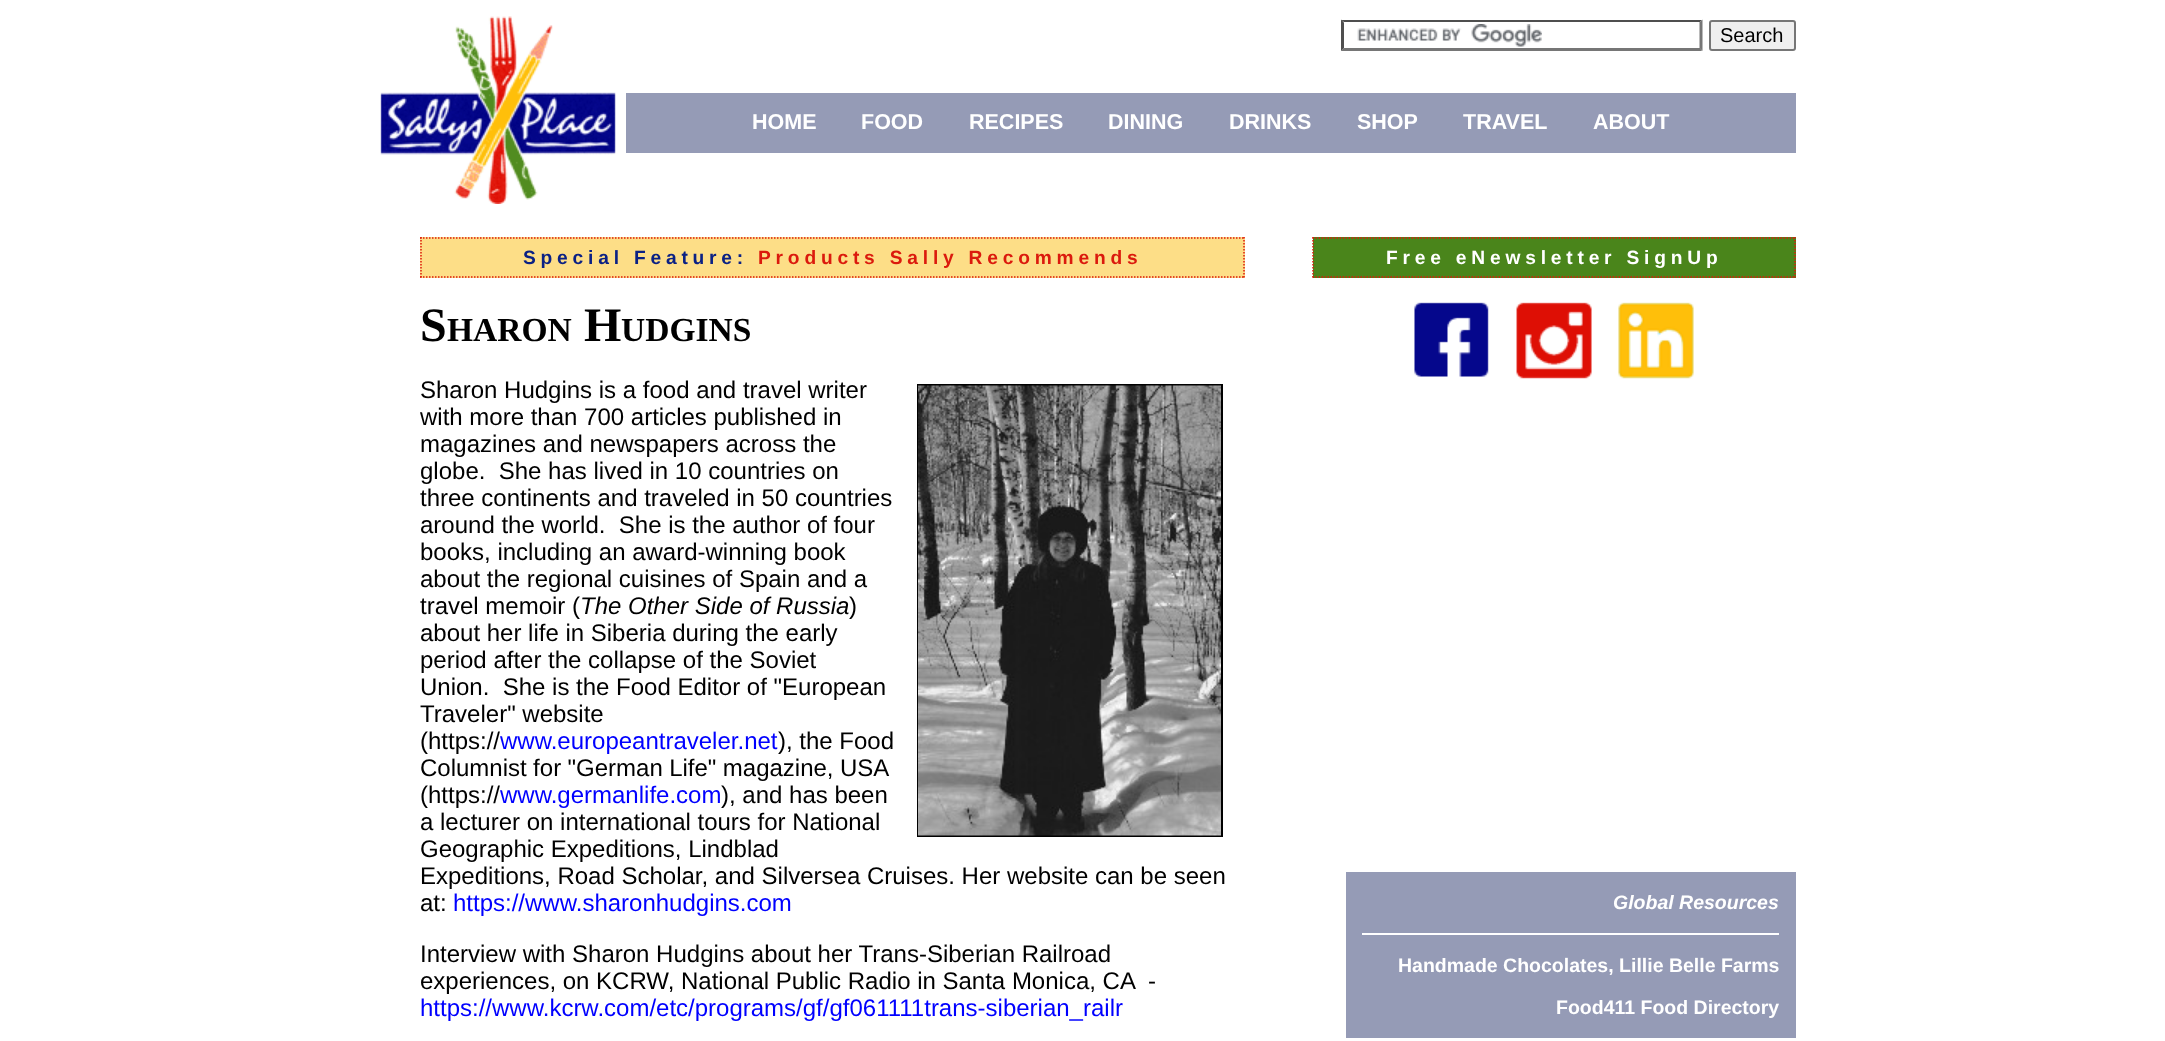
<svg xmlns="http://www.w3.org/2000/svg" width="2165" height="1041">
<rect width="100%" height="100%" fill="#fff"/>
<image x="380" y="16" width="236" height="188" href="media/1.png"/>
<image x="1357" y="24" width="185" height="23" href="media/2.png"/>
<path d="M1341 20h361l-2 2h-356z" fill="#4f4f4f"/>
<path d="M1702.5 19.5v31.5l-3-3v-25.5z" fill="#767676"/>
<path d="M1702 51h-361l3-3h356z" fill="#767676"/>
<path d="M1341 51v-31.5l3 3v25.5z" fill="#4f4f4f"/>
<rect x="1710" y="21" width="85" height="29" rx="2" fill="#efefef" stroke="#767676" stroke-width="2"/>
<text x="1720" y="42" style="font-family:Liberation Sans;font-size:20px;fill:#000">Search</text>
<rect x="626" y="93" width="1170" height="60" fill="#959bb6"/>
<text x="752" y="129" style="font-family:Liberation Sans;font-size:21.5px;font-weight:bold;fill:#fff">HOME</text>
<text x="861" y="129" style="font-family:Liberation Sans;font-size:21.5px;font-weight:bold;fill:#fff">FOOD</text>
<text x="969" y="129" style="font-family:Liberation Sans;font-size:21.5px;font-weight:bold;fill:#fff">RECIPES</text>
<text x="1108" y="129" style="font-family:Liberation Sans;font-size:21.5px;font-weight:bold;fill:#fff">DINING</text>
<text x="1229" y="129" style="font-family:Liberation Sans;font-size:21.5px;font-weight:bold;fill:#fff">DRINKS</text>
<text x="1357" y="129" style="font-family:Liberation Sans;font-size:21.5px;font-weight:bold;fill:#fff">SHOP</text>
<text x="1463" y="129" style="font-family:Liberation Sans;font-size:21.5px;font-weight:bold;fill:#fff">TRAVEL</text>
<text x="1593" y="129" style="font-family:Liberation Sans;font-size:21.5px;font-weight:bold;fill:#fff">ABOUT</text>
<rect x="420" y="237" width="825" height="41" fill="#fdde87"/>
<path d="M420 238h825" fill="none" stroke="#db1a0d" stroke-width="1.5" stroke-dasharray="1.5 1.5"/>
<path d="M1244 237v40.5" fill="none" stroke="#db1a0d" stroke-width="1.5" stroke-dasharray="1.5 1.5"/>
<path d="M420 277h825" fill="none" stroke="#db1a0d" stroke-width="1.5" stroke-dasharray="1.5 1.5"/>
<path d="M421 237v40.5" fill="none" stroke="#db1a0d" stroke-width="1.5" stroke-dasharray="1.5 1.5"/>
<text x="523" y="264" style="font-family:Liberation Sans;font-size:19.2px;font-weight:bold;letter-spacing:4.8px;fill:#0b2184">Special Feature:</text>
<text x="758" y="264" style="font-family:Liberation Sans;font-size:19.2px;font-weight:bold;letter-spacing:4.8px;fill:#db1a0d">Products Sally Recommends</text>
<text x="420" y="341" style="font-family:Liberation Serif;font-size:48px;font-weight:bold;fill:#000">S</text>
<text x="447" y="341" style="font-family:Liberation Serif;font-size:33.5px;font-weight:bold;fill:#000">HARON</text>
<text x="584" y="341" style="font-family:Liberation Serif;font-size:48px;font-weight:bold;fill:#000">H</text>
<text x="621" y="341" style="font-family:Liberation Serif;font-size:33.5px;font-weight:bold;fill:#000">UDGINS</text>
<text x="420" y="398" style="font-family:Liberation Sans;font-size:24px;fill:#000">Sharon Hudgins is a food and travel writer</text>
<rect x="918" y="385" width="304" height="451" fill="none" stroke="#000" stroke-width="2"/>
<image x="918" y="385" width="303" height="451" href="media/3.png"/>
<text x="420" y="425" style="font-family:Liberation Sans;font-size:24px;fill:#000">with more than 700 articles published in</text>
<text x="420" y="452" style="font-family:Liberation Sans;font-size:24px;fill:#000">magazines and newspapers across the</text>
<text x="420" y="479" style="font-family:Liberation Sans;font-size:24px;fill:#000" xml:space="preserve">globe.  She has lived in 10 countries on</text>
<text x="420" y="506" style="font-family:Liberation Sans;font-size:24px;fill:#000">three continents and traveled in 50 countries</text>
<text x="420" y="533" style="font-family:Liberation Sans;font-size:24px;fill:#000" xml:space="preserve">around the world.  She is the author of four</text>
<text x="420" y="560" style="font-family:Liberation Sans;font-size:24px;fill:#000">books, including an award-winning book</text>
<text x="420" y="587" style="font-family:Liberation Sans;font-size:24px;fill:#000">about the regional cuisines of Spain and a</text>
<text x="420" y="614" style="font-family:Liberation Sans;font-size:24px;fill:#000">travel memoir (</text>
<text x="580" y="614" style="font-family:Liberation Sans;font-size:24px;font-style:italic;fill:#000">The Other Side of Russia</text>
<text x="849" y="614" style="font-family:Liberation Sans;font-size:24px;fill:#000">)</text>
<text x="420" y="641" style="font-family:Liberation Sans;font-size:24px;fill:#000">about her life in Siberia during the early</text>
<text x="420" y="668" style="font-family:Liberation Sans;font-size:24px;fill:#000">period after the collapse of the Soviet</text>
<text x="420" y="695" style="font-family:Liberation Sans;font-size:24px;fill:#000" xml:space="preserve">Union.  She is the Food Editor of "European</text>
<text x="420" y="722" style="font-family:Liberation Sans;font-size:24px;fill:#000">Traveler" website</text>
<text x="420" y="749" style="font-family:Liberation Sans;font-size:24px;fill:#000">(https://</text>
<text x="500" y="749" style="font-family:Liberation Sans;font-size:24px;fill:#00f">www.europeantraveler.net</text>
<text x="778" y="749" style="font-family:Liberation Sans;font-size:24px;fill:#000">), the Food</text>
<text x="420" y="776" word-spacing="-0.25" style="font-family:Liberation Sans;font-size:24px;fill:#000">Columnist for "German Life" magazine, USA</text>
<text x="420" y="803" style="font-family:Liberation Sans;font-size:24px;fill:#000">(https://</text>
<text x="500" y="803" style="font-family:Liberation Sans;font-size:24px;fill:#00f">www.germanlife.com</text>
<text x="721" y="803" style="font-family:Liberation Sans;font-size:24px;fill:#000">), and has been</text>
<text x="420" y="830" style="font-family:Liberation Sans;font-size:24px;fill:#000">a lecturer on international tours for National</text>
<text x="420" y="857" style="font-family:Liberation Sans;font-size:24px;fill:#000">Geographic Expeditions, Lindblad</text>
<text x="420" y="884" style="font-family:Liberation Sans;font-size:24px;fill:#000">Expeditions, Road Scholar, and Silversea Cruises. Her website can be seen</text>
<text x="420" y="911" style="font-family:Liberation Sans;font-size:24px;fill:#000">at:</text>
<text x="453" y="911" style="font-family:Liberation Sans;font-size:24px;fill:#00f">https://www.sharonhudgins.com</text>
<text x="420" y="962" style="font-family:Liberation Sans;font-size:24px;fill:#000">Interview with Sharon Hudgins about her Trans-Siberian Railroad</text>
<text x="420" y="989" style="font-family:Liberation Sans;font-size:24px;fill:#000" xml:space="preserve">experiences, on KCRW, National Public Radio in Santa Monica, CA  -</text>
<text x="420" y="1016" style="font-family:Liberation Sans;font-size:24px;fill:#00f">https://www.kcrw.com/etc/programs/gf/gf061111trans-siberian_railr</text>
<rect x="1313" y="237" width="483" height="41" fill="#4a851b"/>
<path d="M1312.5 238h483" fill="none" stroke="#db1a0d" stroke-width="1.5" stroke-dasharray="1.5 1.5"/>
<path d="M1795 237v40.5" fill="none" stroke="#db1a0d" stroke-width="1.5" stroke-dasharray="1.5 1.5"/>
<path d="M1312.5 277h483" fill="none" stroke="#db1a0d" stroke-width="1.5" stroke-dasharray="1.5 1.5"/>
<path d="M1313 237v40.5" fill="none" stroke="#db1a0d" stroke-width="1.5" stroke-dasharray="1.5 1.5"/>
<text x="1386" y="264" style="font-family:Liberation Sans;font-size:19.2px;font-weight:bold;letter-spacing:4.8px;fill:#fff">Free eNewsletter SignUp</text>
<image x="1414" y="302" width="75" height="75" href="media/4.png"/>
<image x="1516" y="302" width="76" height="77" href="media/5.png"/>
<image x="1618" y="302" width="76" height="77" href="media/6.png"/>
<rect x="1346" y="872" width="450" height="166" fill="#959bb6"/>
<rect x="1362" y="933" width="417" height="2" fill="#fff"/>
<text x="1613" y="909" style="font-family:Liberation Sans;font-size:19.5px;font-weight:bold;font-style:italic;fill:#fff">Global Resources</text>
<text x="1398" y="972" style="font-family:Liberation Sans;font-size:19.5px;font-weight:bold;fill:#fff">Handmade Chocolates, Lillie Belle Farms</text>
<text x="1556" y="1014" style="font-family:Liberation Sans;font-size:19.5px;font-weight:bold;fill:#fff">Food411 Food Directory</text>
</svg>
